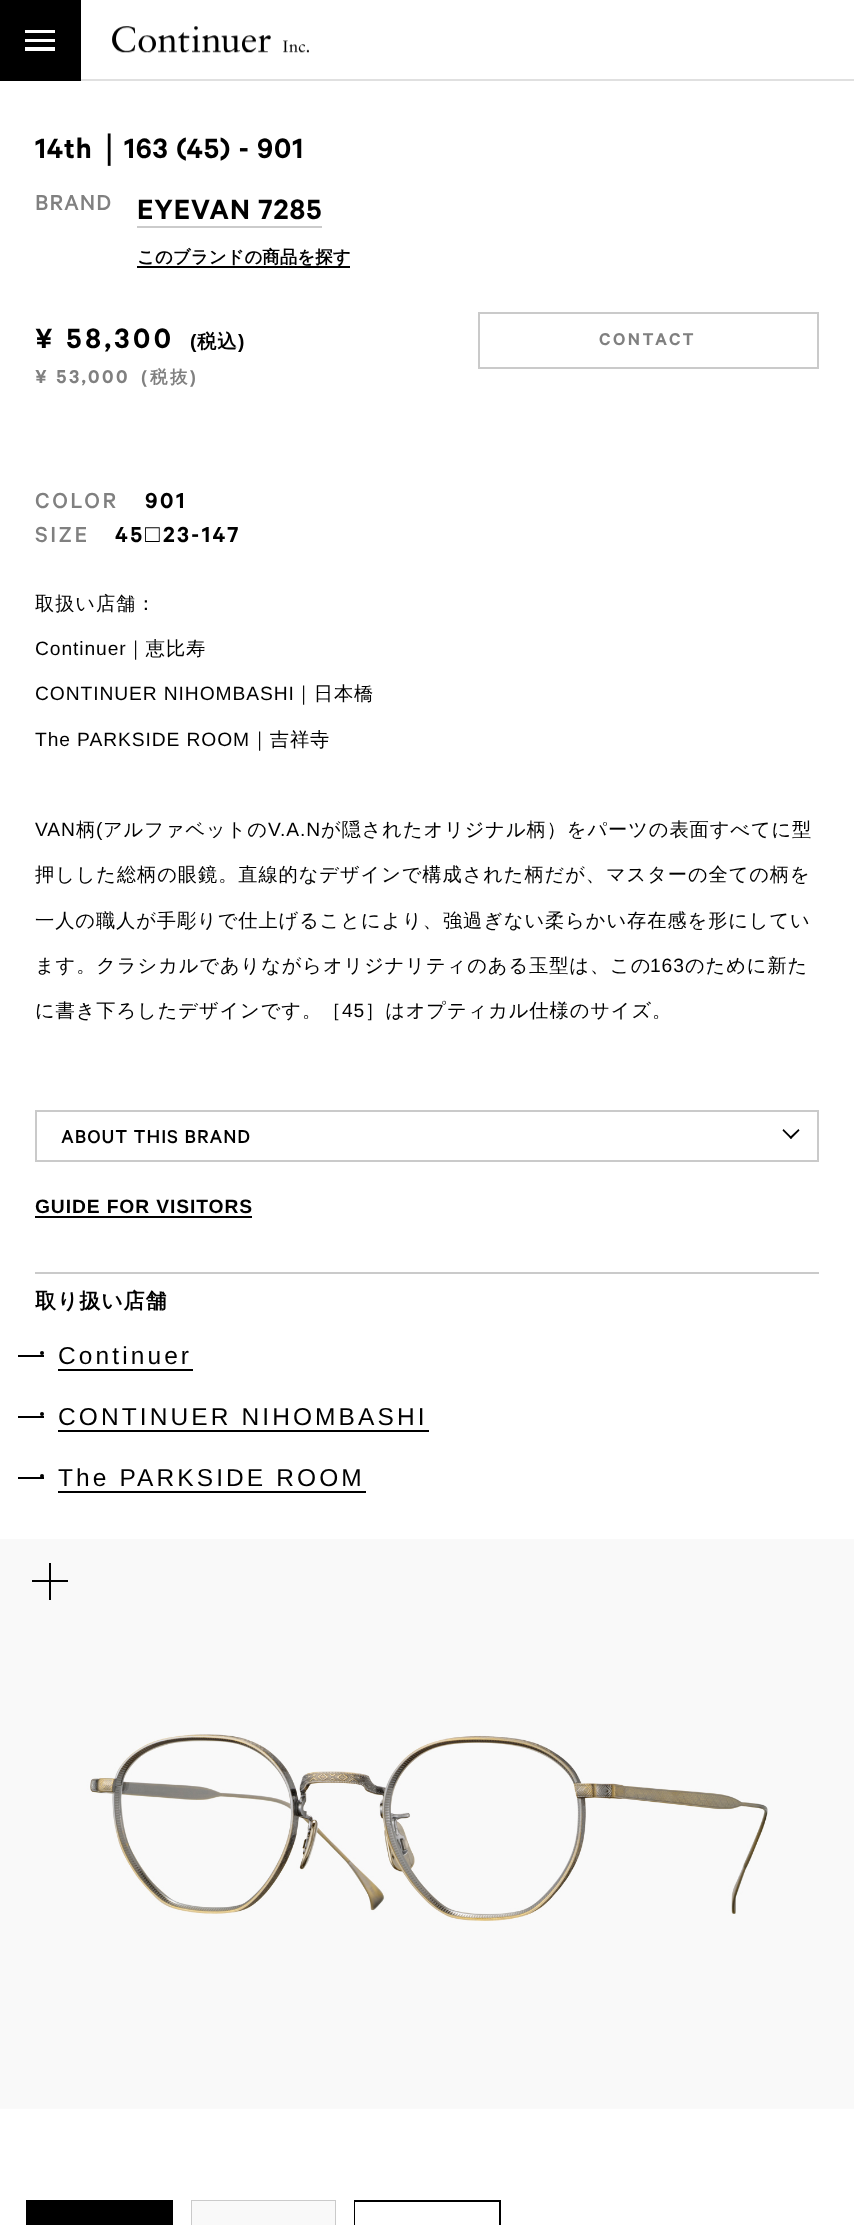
<svg xmlns="http://www.w3.org/2000/svg" width="854" height="2225">
<rect width="100%" height="100%" fill="#fff"/>
<rect x="81" y="79" width="773" height="2" fill="#e0e0e0"/>
<rect width="81" height="81" fill="#000"/>
<rect x="25" y="30" width="30" height="3" fill="#fff"/>
<rect x="25" y="39" width="30" height="3" fill="#fff"/>
<rect x="25" y="47" width="30" height="4" fill="#fff"/>
<image x="112" y="26" width="197" height="27" href="media/1.png"/>
<text x="35" y="158" style="font-family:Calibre;font-size:31.5px;font-weight:600;letter-spacing:0.9px;fill:#000">14th</text>
<text x="93" y="158" style="font-family:WenQuanYi Zen Hei;font-size:31.5px;font-weight:bold;letter-spacing:0.9px;fill:#000">｜</text>
<text x="124" y="158" style="font-family:Calibre;font-size:31.5px;font-weight:600;letter-spacing:0.9px;fill:#000">163 (45) - 901</text>
<text x="35" y="210" style="font-family:Calibre;font-size:24.5px;font-weight:500;letter-spacing:0.9px;fill:#808080">BRAND</text>
<text x="137" y="219" style="font-family:Calibre;font-size:31.5px;font-weight:600;letter-spacing:0.9px;fill:#000">EYEVAN 7285</text>
<rect x="137" y="226" width="185" height="2" fill="#cbcbcb"/>
<rect x="137" y="266" width="213" height="2" fill="#000"/>
<text x="137" y="263" style="font-family:WenQuanYi Zen Hei;font-size:17.5px;font-weight:bold;fill:#000">このブランドの商品を探す</text>
<text x="35" y="348" style="font-family:Calibre;font-size:31.5px;font-weight:600;letter-spacing:3.5px;fill:#000">¥ 58,300</text>
<text x="190" y="348" style="font-family:Liberation Sans;font-size:19.25px;font-weight:bold;letter-spacing:0.9px;fill:#000">(</text>
<text x="197" y="348" style="font-family:WenQuanYi Zen Hei;font-size:19.25px;font-weight:bold;letter-spacing:0.9px;fill:#000">税込</text>
<text x="238" y="348" style="font-family:Liberation Sans;font-size:19.25px;font-weight:bold;letter-spacing:0.9px;fill:#000">)</text>
<rect x="479" y="313" width="339" height="55" fill="none" stroke="#cacaca" stroke-width="2"/>
<text x="599" y="345" style="font-family:Calibre;font-size:19.25px;font-weight:600;letter-spacing:2.5px;fill:#808080">CONTACT</text>
<text x="35" y="383" style="font-family:Calibre;font-size:21px;font-weight:600;letter-spacing:2.5px;fill:#808080">¥ 53,000</text>
<text x="141" y="383" style="font-family:Liberation Sans;font-size:17.5px;font-weight:bold;letter-spacing:2.5px;fill:#808080">(</text>
<text x="150" y="383" style="font-family:WenQuanYi Zen Hei;font-size:17.5px;font-weight:bold;letter-spacing:2.5px;fill:#808080">税抜</text>
<text x="190" y="383" style="font-family:Liberation Sans;font-size:17.5px;font-weight:bold;letter-spacing:2.5px;fill:#808080">)</text>
<text x="35" y="508" style="font-family:Calibre;font-size:24.5px;font-weight:500;letter-spacing:2.5px;fill:#808080">COLOR</text>
<text x="145" y="508" style="font-family:Calibre;font-size:24.5px;font-weight:600;letter-spacing:2.5px;fill:#000">901</text>
<text x="35" y="542" style="font-family:Calibre;font-size:24.5px;font-weight:500;letter-spacing:2.5px;fill:#808080">SIZE</text>
<text x="115" y="542" style="font-family:Calibre;font-size:24.5px;font-weight:600;letter-spacing:2.5px;fill:#000">45</text>
<text x="145" y="542" style="font-family:Liberation Sans;font-size:24.5px;letter-spacing:2.5px;fill:#000">□</text>
<text x="163" y="542" style="font-family:Calibre;font-size:24.5px;font-weight:600;letter-spacing:2.5px;fill:#000">23-147</text>
<text x="35" y="610" style="font-family:WenQuanYi Zen Hei;font-size:19.25px;font-weight:500;letter-spacing:0.9px;fill:#000">取扱い店舗：</text>
<text x="35" y="655" style="font-family:Liberation Sans;font-size:19.25px;letter-spacing:0.9px;fill:#000">Continuer</text>
<text x="126" y="655" style="font-family:WenQuanYi Zen Hei;font-size:19.25px;font-weight:500;letter-spacing:0.9px;fill:#000">｜恵比寿</text>
<text x="35" y="700" style="font-family:Liberation Sans;font-size:19.25px;letter-spacing:0.9px;fill:#000">CONTINUER NIHOMBASHI</text>
<text x="294" y="700" style="font-family:WenQuanYi Zen Hei;font-size:19.25px;font-weight:500;letter-spacing:0.9px;fill:#000">｜日本橋</text>
<text x="35" y="746" style="font-family:Liberation Sans;font-size:19.25px;letter-spacing:0.9px;fill:#000">The PARKSIDE ROOM</text>
<text x="250" y="746" style="font-family:WenQuanYi Zen Hei;font-size:19.25px;font-weight:500;letter-spacing:0.9px;fill:#000">｜吉祥寺</text>
<text x="35" y="836" style="font-family:Liberation Sans;font-size:19.25px;letter-spacing:0.9px;fill:#000">VAN</text>
<text x="76" y="836" style="font-family:WenQuanYi Zen Hei;font-size:19.25px;font-weight:500;letter-spacing:0.9px;fill:#000">柄</text>
<text x="96" y="836" style="font-family:Liberation Sans;font-size:19.25px;letter-spacing:0.9px;fill:#000">(</text>
<text x="103" y="836" style="font-family:WenQuanYi Zen Hei;font-size:19.25px;font-weight:500;letter-spacing:0.9px;fill:#000">アルファベットの</text>
<text x="268" y="836" style="font-family:Liberation Sans;font-size:19.25px;letter-spacing:0.9px;fill:#000">V.A.N</text>
<text x="321" y="836" style="font-family:WenQuanYi Zen Hei;font-size:19.25px;font-weight:500;letter-spacing:0.9px;fill:#000">が隠されたオリジナル柄）をパーツの表面すべてに型</text>
<text x="35" y="881" style="font-family:WenQuanYi Zen Hei;font-size:19.25px;font-weight:500;letter-spacing:0.9px;fill:#000">押しした総柄の眼鏡。直線的なデザインで構成された柄だが、マスターの全ての柄を</text>
<text x="35" y="927" style="font-family:WenQuanYi Zen Hei;font-size:19.25px;font-weight:500;letter-spacing:0.9px;fill:#000">一人の職人が手彫りで仕上げることにより、強過ぎない柔らかい存在感を形にしてい</text>
<text x="35" y="972" style="font-family:WenQuanYi Zen Hei;font-size:19.25px;font-weight:500;letter-spacing:0.9px;fill:#000">ます。クラシカルでありながらオリジナリティのある玉型は、この</text>
<text x="650" y="972" style="font-family:Liberation Sans;font-size:19.25px;letter-spacing:0.9px;fill:#000">163</text>
<text x="685" y="972" style="font-family:WenQuanYi Zen Hei;font-size:19.25px;font-weight:500;letter-spacing:0.9px;fill:#000">のために新た</text>
<text x="35" y="1017" style="font-family:WenQuanYi Zen Hei;font-size:19.25px;font-weight:500;letter-spacing:0.9px;fill:#000">に書き下ろしたデザインです。［</text>
<text x="342" y="1017" style="font-family:Liberation Sans;font-size:19.25px;letter-spacing:0.9px;fill:#000">45</text>
<text x="365" y="1017" style="font-family:WenQuanYi Zen Hei;font-size:19.25px;font-weight:500;letter-spacing:0.9px;fill:#000">］はオプティカル仕様のサイズ。</text>
<rect x="36" y="1111" width="782" height="50" fill="none" stroke="#cacaca" stroke-width="2"/>
<text x="61" y="1143" style="font-family:Calibre;font-size:21px;font-weight:500;letter-spacing:0.9px;fill:#000">ABOUT THIS BRAND</text>
<path d="M799.5 1130.5l-8.5 8.5l-1.5-1.5l9-8.5z" fill="#000"/>
<path d="M792 1137.5l-1 1.5l-8.5-8.5l1-1.5z" fill="#000"/>
<text x="35" y="1213" style="font-family:Liberation Sans;font-size:19.25px;font-weight:bold;letter-spacing:0.9px;fill:#000">GUIDE FOR VISITORS</text>
<rect x="35" y="1216" width="217" height="2" fill="#000"/>
<rect x="35" y="1272" width="784" height="2" fill="#cacaca"/>
<text x="35" y="1308" style="font-family:WenQuanYi Zen Hei;font-size:21px;font-weight:bold;letter-spacing:0.9px;fill:#000">取り扱い店舗</text>
<rect x="18" y="1355" width="26" height="2" fill="#000"/>
<rect x="58" y="1369" width="135" height="2" fill="#000"/>
<circle cx="42" cy="1353" r="2" fill="#000"/>
<text x="58" y="1364" style="font-family:Liberation Sans;font-size:24.5px;letter-spacing:3.1px;fill:#000">Continuer</text>
<rect x="18" y="1416" width="26" height="2" fill="#000"/>
<rect x="58" y="1430" width="371" height="2" fill="#000"/>
<circle cx="42" cy="1414" r="2" fill="#000"/>
<text x="58" y="1425" style="font-family:Liberation Sans;font-size:24.5px;letter-spacing:3.1px;fill:#000">CONTINUER NIHOMBASHI</text>
<rect x="18" y="1477" width="26" height="2" fill="#000"/>
<rect x="58" y="1491" width="308" height="2" fill="#000"/>
<circle cx="42" cy="1476" r="2" fill="#000"/>
<text x="58" y="1486" style="font-family:Liberation Sans;font-size:24.5px;letter-spacing:3.1px;fill:#000">The PARKSIDE ROOM</text>
<image x="0" y="1539" width="854" height="570" href="media/2.png"/>
<rect x="32" y="1580" width="36" height="2" fill="#000"/>
<rect x="49" y="1563" width="2" height="37" fill="#000"/>
<rect x="27" y="2201" width="145" height="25" fill="none" stroke="#000" stroke-width="2"/>
<rect x="28" y="2202" width="143" height="23" fill="#000"/>
<rect x="192" y="2201" width="143" height="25" fill="none" stroke="#cacaca" stroke-width="2"/>
<rect x="192" y="2201" width="143" height="24" fill="#f9f9f9"/>
<rect x="355" y="2201" width="145" height="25" fill="none" stroke="#000" stroke-width="2"/>
<rect x="355" y="2202" width="1" height="23" fill="#fff"/>
</svg>
